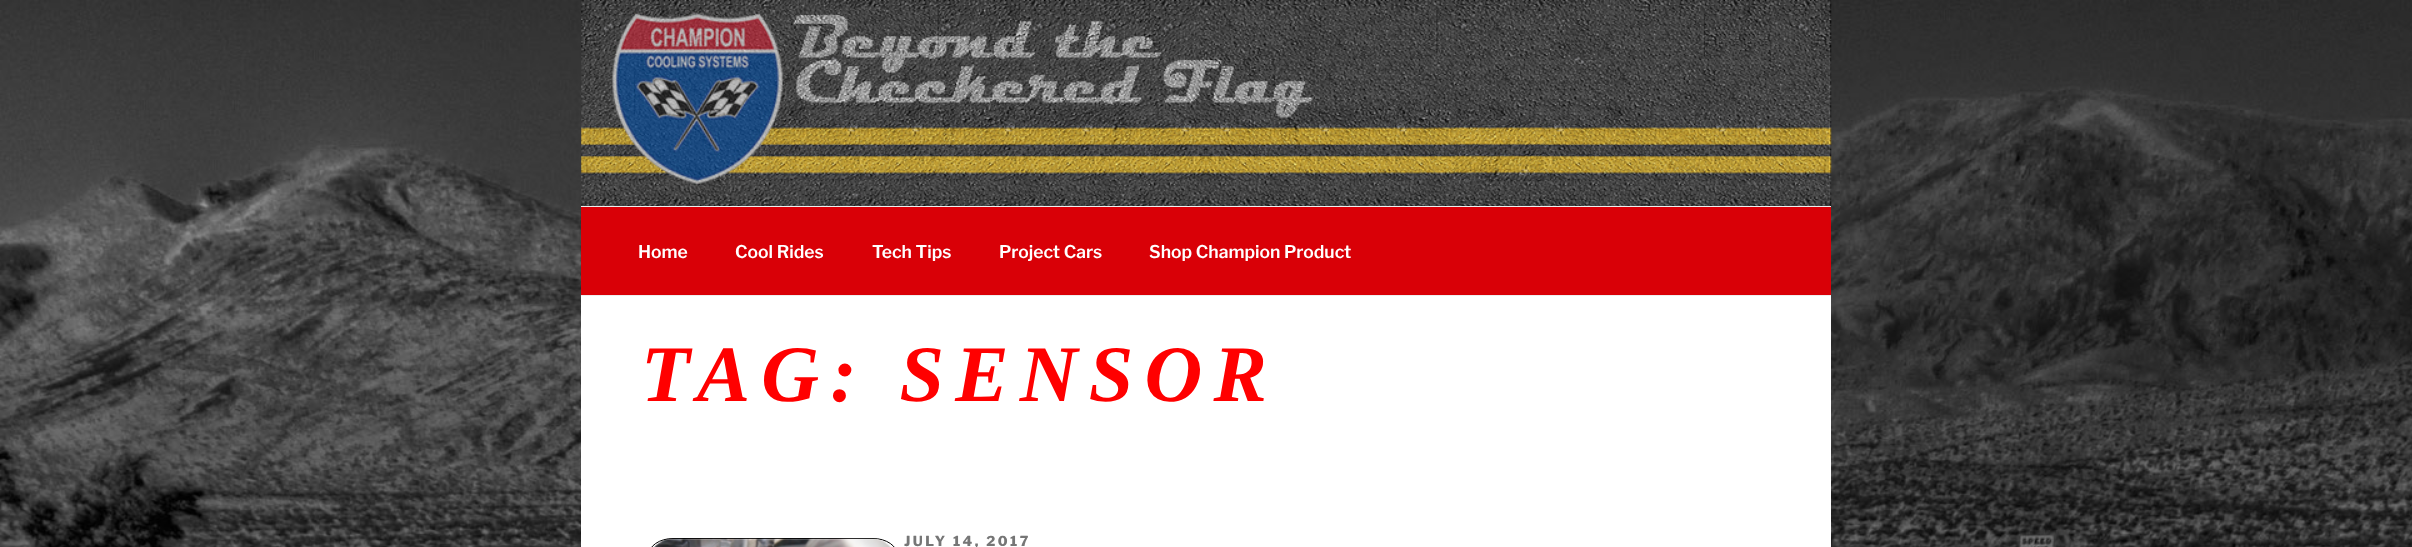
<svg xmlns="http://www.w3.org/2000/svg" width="2412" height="547">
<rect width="100%" height="100%" fill="#fff"/>
<image x="0" y="0" width="2412" height="547" href="media/1.png"/>
<image x="581" y="0" width="1251" height="207" href="media/2.png"/>
<rect x="581" y="207" width="1250" height="88" fill="#d90007"/>
<rect x="581" y="206" width="1250" height="1" fill="#eee"/>
<rect x="581" y="295" width="1250" height="1" fill="#eee"/>
<text x="638" y="258" style="font-family:Libre Franklin;font-size:17.5px;font-weight:600;fill:#fff">Home</text>
<text x="735" y="258" style="font-family:Libre Franklin;font-size:17.5px;font-weight:600;fill:#fff">Cool Rides</text>
<text x="872" y="258" style="font-family:Libre Franklin;font-size:17.5px;font-weight:600;fill:#fff">Tech Tips</text>
<text x="999" y="258" style="font-family:Libre Franklin;font-size:17.5px;font-weight:600;fill:#fff">Project Cars</text>
<text x="1149" y="258" style="font-family:Libre Franklin;font-size:17.5px;font-weight:600;fill:#fff">Shop Champion Product</text>
<rect x="581" y="296" width="1250" height="251" fill="#fff"/>
<text x="641" y="401" style="font-family:Liberation Serif;font-size:80px;font-weight:bold;font-style:italic;letter-spacing:11.25px;fill:#f00">TAG: SENSOR</text>
<rect x="648.5" y="538.5" width="249" height="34" rx="24.5" fill="none" stroke="#000"/>
<image x="654" y="538" width="237" height="9" href="media/3.png"/>
<text x="904" y="546" style="font-family:Libre Franklin;font-size:13.75px;font-weight:800;letter-spacing:2.5px;fill:#767676">JULY 14, 2017</text>
</svg>
